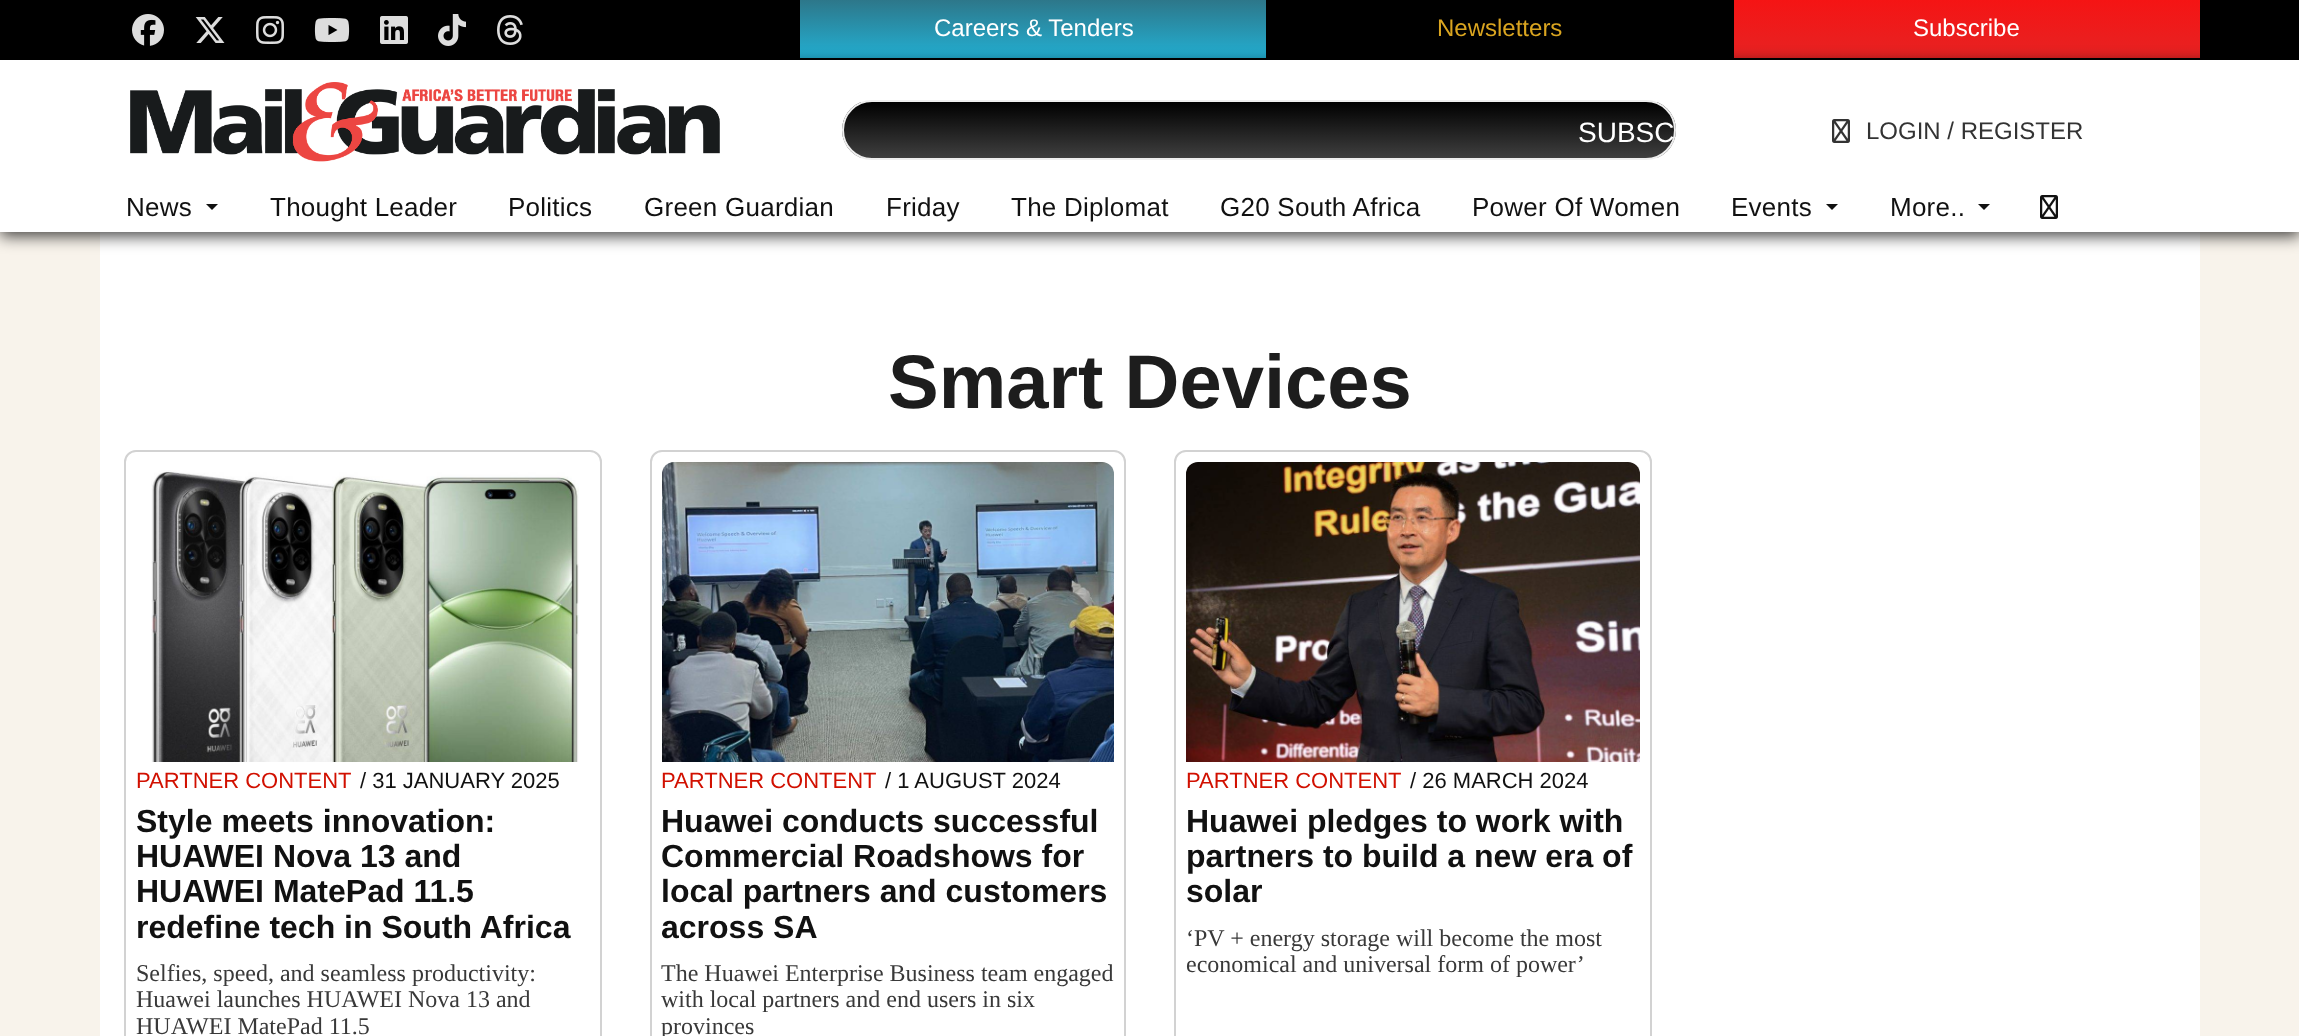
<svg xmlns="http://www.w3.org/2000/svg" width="2299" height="1036">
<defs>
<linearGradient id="g1" gradientUnits="userSpaceOnUse" x1="1033" y1="58" x2="1033" y2="0"><stop offset="0" stop-color="#23afd2"/><stop offset="1" stop-color="#2d778a"/></linearGradient>
<linearGradient id="g2" gradientUnits="userSpaceOnUse" x1="1967" y1="0" x2="1967" y2="58"><stop offset="0" stop-color="#f51414"/><stop offset="1" stop-color="#e62323"/></linearGradient>
<clipPath id="clip1"><rect x="842" y="100" width="834" height="60" rx="30"/></clipPath>
<linearGradient id="g3" gradientUnits="userSpaceOnUse" x1="1259" y1="102" x2="1259" y2="158"><stop offset="0" stop-color="#000"/><stop offset="1" stop-color="#3f3f3f"/></linearGradient>
</defs>
<rect width="100%" height="100%" fill="#f8f3eb"/>
<rect width="2299" height="60" fill="#000"/>
<image x="132" y="14" width="32" height="32" href="media/1.png"/>
<image x="195" y="17" width="30" height="26" href="media/2.png"/>
<image x="256" y="16" width="28" height="28" href="media/3.png"/>
<image x="314" y="18" width="36" height="24" href="media/4.png"/>
<image x="380" y="16" width="28" height="28" href="media/5.png"/>
<image x="438" y="14" width="28" height="32" href="media/6.png"/>
<image x="497" y="15" width="26" height="30" href="media/7.png"/>
<rect x="800" width="466" height="58" fill="url(#g1)"/>
<text x="934" y="36" style="font-family:Liberation Sans;font-size:24px;fill:#fff">Careers &amp; Tenders</text>
<text x="1437" y="36" style="font-family:Liberation Sans;font-size:24px;fill:#daa520">Newsletters</text>
<rect x="1734" width="466" height="58" fill="url(#g2)"/>
<text x="1913" y="36" style="font-family:Liberation Sans;font-size:24px;fill:#fff">Subscribe</text>
<rect x="100" y="232" width="2100" height="804" fill="#fff"/>
<rect y="64" width="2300" height="172" fill="#000000bf" filter="blur(8px)"/>
<rect y="60" width="2299" height="172" fill="#fff"/>
<image x="130" y="82" width="590" height="80" href="media/8.png"/>
<g clip-path="url(#clip1)">
<rect x="842" y="102" width="834" height="56" fill="url(#g3)"/>
</g>
<rect x="843" y="101" width="832" height="58" rx="29" fill="none" stroke="#eee" stroke-width="2"/>
<text x="1578" y="142" style="font-family:Liberation Sans;font-size:28px;fill:#fff">SUBSC</text>
<image x="1832" y="119" width="18" height="24" href="media/9.png"/>
<text x="1866" y="139" style="font-family:Liberation Sans;font-size:24px;fill:#333">LOGIN / REGISTER</text>
<text x="126" y="216" style="font-family:Liberation Sans;font-size:26px;letter-spacing:0.25px;fill:#111">News</text>
<path d="M206 204h12l-6 6z" fill="#111"/>
<text x="270" y="216" style="font-family:Liberation Sans;font-size:26px;letter-spacing:0.25px;fill:#111">Thought Leader</text>
<text x="508" y="216" style="font-family:Liberation Sans;font-size:26px;letter-spacing:0.25px;fill:#111">Politics</text>
<text x="644" y="216" style="font-family:Liberation Sans;font-size:26px;letter-spacing:0.25px;fill:#111">Green Guardian</text>
<text x="886" y="216" style="font-family:Liberation Sans;font-size:26px;letter-spacing:0.25px;fill:#111">Friday</text>
<text x="1011" y="216" style="font-family:Liberation Sans;font-size:26px;letter-spacing:0.25px;fill:#111">The Diplomat</text>
<text x="1220" y="216" style="font-family:Liberation Sans;font-size:26px;letter-spacing:0.25px;fill:#111">G20 South Africa</text>
<text x="1472" y="216" style="font-family:Liberation Sans;font-size:26px;letter-spacing:0.25px;fill:#111">Power Of Women</text>
<text x="1731" y="216" style="font-family:Liberation Sans;font-size:26px;letter-spacing:0.25px;fill:#111">Events</text>
<path d="M1826 204h12l-6 6z" fill="#111"/>
<text x="1890" y="216" style="font-family:Liberation Sans;font-size:26px;letter-spacing:0.25px;fill:#111">More..</text>
<path d="M1978 204h12l-6 6z" fill="#111"/>
<image x="2040" y="195" width="18" height="24" href="media/10.png"/>
<text x="888" y="408" style="font-family:Liberation Sans;font-size:76px;font-weight:bold;fill:#1d1d1d">Smart Devices</text>
<rect x="125" y="451" width="476" height="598" rx="11" fill="none" stroke="#d2d2d2" stroke-width="2"/>
<image x="151" y="470" width="428" height="292" href="media/11.png"/>
<text x="136" y="788" style="font-family:Liberation Sans;font-size:22px;fill:#d11000">PARTNER CONTENT</text>
<text x="360" y="788" style="font-family:Liberation Sans;font-size:22px;fill:#111">/ 31 JANUARY 2025</text>
<text x="136" y="832" style="font-family:Liberation Sans;font-size:32px;font-weight:bold;fill:#111">Style meets innovation:</text>
<text x="136" y="867" style="font-family:Liberation Sans;font-size:32px;font-weight:bold;fill:#111">HUAWEI Nova 13 and</text>
<text x="136" y="902" style="font-family:Liberation Sans;font-size:32px;font-weight:bold;fill:#111">HUAWEI MatePad 11.5</text>
<text x="136" y="938" style="font-family:Liberation Sans;font-size:32px;font-weight:bold;fill:#111">redefine tech in South Africa</text>
<text x="136" y="981" style="font-family:Liberation Serif;font-size:24px;fill:#393939">Selfies, speed, and seamless productivity:</text>
<text x="136" y="1007" style="font-family:Liberation Serif;font-size:24px;fill:#393939">Huawei launches HUAWEI Nova 13 and</text>
<text x="136" y="1034" style="font-family:Liberation Serif;font-size:24px;fill:#393939">HUAWEI MatePad 11.5</text>
<rect x="651" y="451" width="474" height="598" rx="11" fill="none" stroke="#d2d2d2" stroke-width="2"/>
<image x="662" y="462" width="452" height="300" href="media/12.png"/>
<text x="661" y="788" style="font-family:Liberation Sans;font-size:22px;fill:#d11000">PARTNER CONTENT</text>
<text x="885" y="788" style="font-family:Liberation Sans;font-size:22px;fill:#111">/ 1 AUGUST 2024</text>
<text x="661" y="832" style="font-family:Liberation Sans;font-size:32px;font-weight:bold;fill:#111">Huawei conducts successful</text>
<text x="661" y="867" style="font-family:Liberation Sans;font-size:32px;font-weight:bold;fill:#111">Commercial Roadshows for</text>
<text x="661" y="902" style="font-family:Liberation Sans;font-size:32px;font-weight:bold;fill:#111">local partners and customers</text>
<text x="661" y="938" style="font-family:Liberation Sans;font-size:32px;font-weight:bold;fill:#111">across SA</text>
<text x="661" y="981" style="font-family:Liberation Serif;font-size:24px;fill:#393939">The Huawei Enterprise Business team engaged</text>
<text x="661" y="1007" style="font-family:Liberation Serif;font-size:24px;fill:#393939">with local partners and end users in six</text>
<text x="661" y="1034" style="font-family:Liberation Serif;font-size:24px;fill:#393939">provinces</text>
<rect x="1175" y="451" width="476" height="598" rx="11" fill="none" stroke="#d2d2d2" stroke-width="2"/>
<image x="1186" y="462" width="454" height="300" href="media/13.png"/>
<text x="1186" y="788" style="font-family:Liberation Sans;font-size:22px;fill:#d11000">PARTNER CONTENT</text>
<text x="1410" y="788" style="font-family:Liberation Sans;font-size:22px;fill:#111">/ 26 MARCH 2024</text>
<text x="1186" y="832" style="font-family:Liberation Sans;font-size:32px;font-weight:bold;fill:#111">Huawei pledges to work with</text>
<text x="1186" y="867" style="font-family:Liberation Sans;font-size:32px;font-weight:bold;fill:#111">partners to build a new era of</text>
<text x="1186" y="902" style="font-family:Liberation Sans;font-size:32px;font-weight:bold;fill:#111">solar</text>
<text x="1186" y="946" style="font-family:Liberation Serif;font-size:24px;fill:#393939">‘PV + energy storage will become the most</text>
<text x="1186" y="972" style="font-family:Liberation Serif;font-size:24px;fill:#393939">economical and universal form of power’</text>
</svg>
